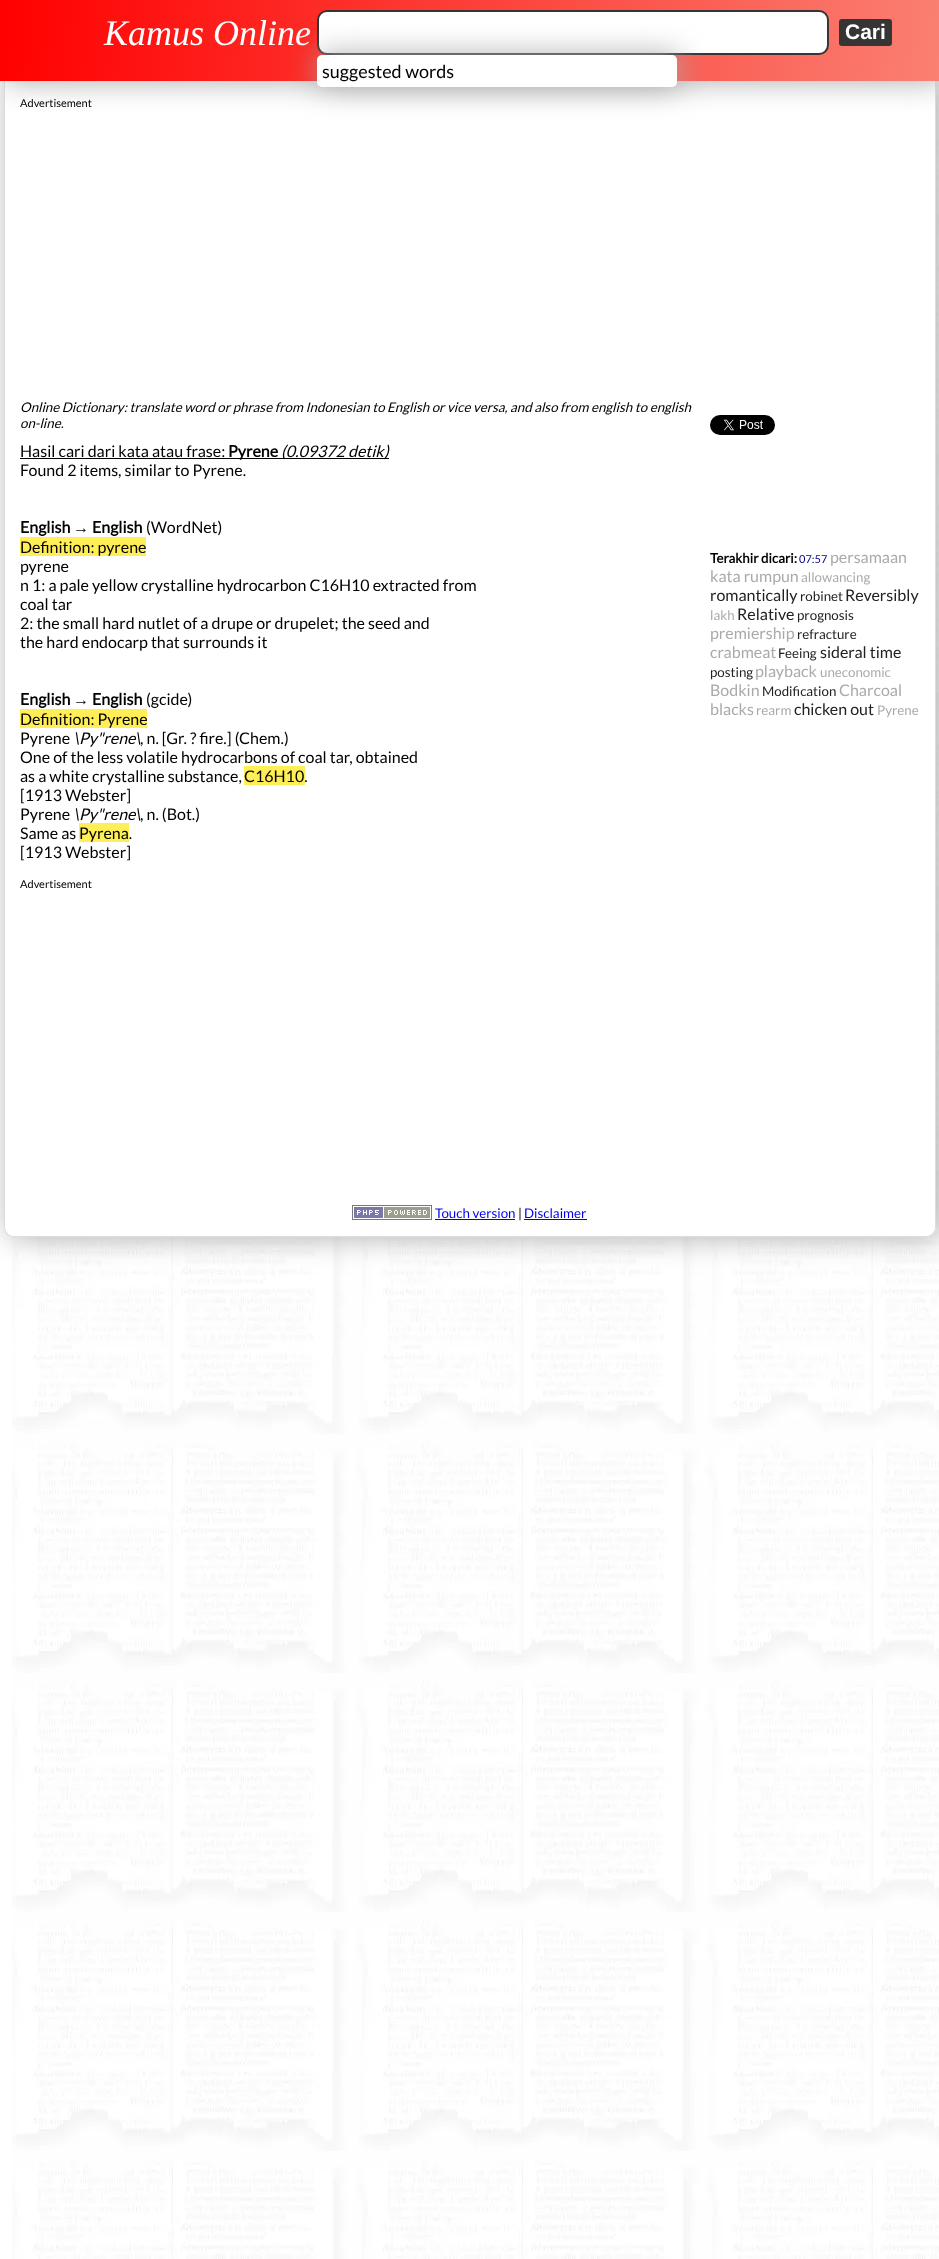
<svg xmlns="http://www.w3.org/2000/svg" width="939" height="2259">
<defs>
<linearGradient id="g1" gradientUnits="userSpaceOnUse" x1="0" y1="0" x2="939" y2="81"><stop offset="0" stop-color="#f00"/><stop offset="1" stop-color="#fa8072"/></linearGradient>
</defs>
<rect width="100%" height="100%" fill="#fff"/>
<image x="12" y="81" width="927" height="2178" href="media/1.png"/>
<rect x="9" y="81" width="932" height="1156" rx="10" fill="#aaa" filter="blur(15px)"/>
<path d="M4 81h932v1146c0 5.5-4.5 10-10 10h-912c-5.5 0-10-4.5-10-10z" fill="#fff"/>
<path d="M4 81h932v1146c0 6-4 10-10 10h-912c-6 0-10-4-10-10zm1 0h930v1146c0 5-4 9-9 9h-912c-5 0-9-4-9-9z" fill="#ddd" fill-rule="evenodd"/>
<rect x="5" width="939" height="81" fill="#aaa" filter="blur(15px)"/>
<rect width="939" height="81" fill="url(#g1)"/>
<text x="104" y="45" style="font-family:Liberation Serif;font-size:36px;font-style:italic;fill:#fff">Kamus Online</text>
<rect x="839" y="19" width="53" height="27" rx="3" fill="#353535"/>
<text x="845" y="39" style="font-family:Liberation Sans;font-size:21px;font-weight:bold;fill:#fff">Cari</text>
<rect x="318" y="11" width="510" height="43" rx="9" fill="#fff" stroke="#353535" stroke-width="2"/>
<rect x="319" y="55" width="360" height="32" rx="5" fill="#aaa" filter="blur(15px)"/>
<rect x="317" y="55" width="360" height="32" rx="5" fill="#fff"/>
<text x="322" y="78" style="font-family:Lato;font-size:18px;fill:#000">suggested words</text>
<text x="20" y="107" style="font-family:Lato;font-size:11px;fill:#000">Advertisement</text>
<text x="20" y="412" style="font-family:Lato;font-size:13.33px;font-style:italic;fill:#000">Online Dictionary: translate word or phrase from Indonesian to English or vice versa, and also from english to english</text>
<text x="20" y="428" style="font-family:Lato;font-size:13.33px;font-style:italic;fill:#000">on-line.</text>
<text x="20" y="457" style="font-family:Lato;font-size:16px;fill:#000">Hasil cari dari kata atau frase:</text>
<rect x="20" y="458" width="364" height="1" fill="#000"/>
<text x="228" y="457" style="font-family:Lato;font-size:16px;font-weight:bold;fill:#000">Pyrene</text>
<text x="281" y="457" style="font-family:Lato;font-size:16px;font-style:italic;fill:#000">(0.09372 detik</text>
<rect x="384" y="458" width="5" height="1" fill="#000"/>
<text x="384" y="457" style="font-family:Lato;font-size:16px;font-style:italic;fill:#000">)</text>
<text x="20" y="476" style="font-family:Lato;font-size:16px;fill:#000">Found 2 items, similar to Pyrene.</text>
<text x="20" y="533" style="font-family:Lato;font-size:16px;font-weight:bold;fill:#000">English</text>
<text x="73" y="533" style="font-family:Liberation Sans;font-size:16px;font-weight:bold;fill:#000">→</text>
<text x="92" y="533" style="font-family:Lato;font-size:16px;font-weight:bold;fill:#000">English</text>
<text x="146" y="533" style="font-family:Lato;font-size:16px;fill:#000">(WordNet)</text>
<rect x="20" y="537" width="126" height="19" fill="#fe5"/>
<text x="20" y="553" style="font-family:Lato;font-size:16px;fill:#000">Definition: pyrene</text>
<text x="20" y="572" style="font-family:Lato;font-size:16px;fill:#000">pyrene</text>
<text x="20" y="591" style="font-family:Lato;font-size:16px;fill:#000">n 1: a pale yellow crystalline hydrocarbon C16H10 extracted from</text>
<text x="20" y="610" style="font-family:Lato;font-size:16px;fill:#000">coal tar</text>
<text x="20" y="629" style="font-family:Lato;font-size:16px;fill:#000">2: the small hard nutlet of a drupe or drupelet; the seed and</text>
<text x="20" y="648" style="font-family:Lato;font-size:16px;fill:#000">the hard endocarp that surrounds it</text>
<text x="20" y="705" style="font-family:Lato;font-size:16px;font-weight:bold;fill:#000">English</text>
<text x="73" y="705" style="font-family:Liberation Sans;font-size:16px;font-weight:bold;fill:#000">→</text>
<text x="92" y="705" style="font-family:Lato;font-size:16px;font-weight:bold;fill:#000">English</text>
<text x="146" y="705" style="font-family:Lato;font-size:16px;fill:#000">(gcide)</text>
<rect x="20" y="709" width="127" height="19" fill="#fe5"/>
<text x="20" y="725" style="font-family:Lato;font-size:16px;fill:#000">Definition: Pyrene</text>
<text x="20" y="744" style="font-family:Lato;font-size:16px;fill:#000">Pyrene</text>
<text x="73" y="744" style="font-family:Lato;font-size:16px;font-style:italic;fill:#000">\Py"rene\</text>
<text x="140" y="744" style="font-family:Lato;font-size:16px;fill:#000">, n. [Gr. ? fire.] (Chem.)</text>
<text x="20" y="763" style="font-family:Lato;font-size:16px;fill:#000">One of the less volatile hydrocarbons of coal tar, obtained</text>
<text x="20" y="782" style="font-family:Lato;font-size:16px;fill:#000">as a white crystalline substance,</text>
<rect x="244" y="766" width="61" height="19" fill="#fe5"/>
<text x="244" y="782" style="font-family:Lato;font-size:16px;fill:#000">C16H10.</text>
<text x="20" y="801" style="font-family:Lato;font-size:16px;fill:#000">[1913 Webster]</text>
<text x="20" y="820" style="font-family:Lato;font-size:16px;fill:#000">Pyrene</text>
<text x="73" y="820" style="font-family:Lato;font-size:16px;font-style:italic;fill:#000">\Py"rene\</text>
<text x="140" y="820" style="font-family:Lato;font-size:16px;fill:#000">, n. (Bot.)</text>
<text x="20" y="839" style="font-family:Lato;font-size:16px;fill:#000">Same as</text>
<rect x="79" y="823" width="50" height="19" fill="#fe5"/>
<text x="79" y="839" style="font-family:Lato;font-size:16px;fill:#000">Pyrena.</text>
<text x="20" y="858" style="font-family:Lato;font-size:16px;fill:#000">[1913 Webster]</text>
<text x="20" y="888" style="font-family:Lato;font-size:11px;fill:#000">Advertisement</text>
<image x="710" y="415" width="65" height="20" href="media/2.png"/>
<text x="710" y="563" style="font-family:Lato;font-size:13.33px;font-weight:bold;fill:#000">Terakhir dicari:</text>
<text x="799" y="563" style="font-family:Lato;font-size:11px;fill:#000080">07:57</text>
<text x="830" y="563" style="font-family:Lato;font-size:16px;fill:#aaa">persamaan</text>
<text x="710" y="582" style="font-family:Lato;font-size:16px;fill:#aaa">kata rumpun</text>
<text x="801" y="582" style="font-family:Lato;font-size:13.33px;fill:#aaa">allowancing</text>
<text x="710" y="601" style="font-family:Lato;font-size:16px;fill:#222">romantically</text>
<text x="800" y="601" style="font-family:Lato;font-size:13.33px;fill:#222">robinet</text>
<text x="845" y="601" style="font-family:Lato;font-size:16px;fill:#222">Reversibly</text>
<text x="710" y="620" style="font-family:Lato;font-size:13.33px;fill:#aaa">lakh</text>
<text x="737" y="620" style="font-family:Lato;font-size:16px;fill:#222">Relative</text>
<text x="797" y="620" style="font-family:Lato;font-size:13.33px;fill:#222">prognosis</text>
<text x="710" y="639" style="font-family:Lato;font-size:16px;fill:#aaa">premiership</text>
<text x="797" y="639" style="font-family:Lato;font-size:13.33px;fill:#222">refracture</text>
<text x="710" y="658" style="font-family:Lato;font-size:16px;fill:#aaa">crabmeat</text>
<text x="778" y="658" style="font-family:Lato;font-size:13.33px;fill:#222">Feeing</text>
<text x="820" y="658" style="font-family:Lato;font-size:16px;fill:#222">sideral time</text>
<text x="710" y="677" style="font-family:Lato;font-size:13.33px;fill:#222">posting</text>
<text x="755" y="677" style="font-family:Lato;font-size:16px;fill:#aaa">playback</text>
<text x="820" y="677" style="font-family:Lato;font-size:13.33px;fill:#aaa">uneconomic</text>
<text x="710" y="696" style="font-family:Lato;font-size:16px;fill:#aaa">Bodkin</text>
<text x="762" y="696" style="font-family:Lato;font-size:13.33px;fill:#222">Modification</text>
<text x="839" y="696" style="font-family:Lato;font-size:16px;fill:#aaa">Charcoal</text>
<text x="710" y="715" style="font-family:Lato;font-size:16px;fill:#aaa">blacks</text>
<text x="756" y="715" style="font-family:Lato;font-size:13.33px;fill:#aaa">rearm</text>
<text x="794" y="715" style="font-family:Lato;font-size:16px;fill:#222">chicken out</text>
<text x="877" y="715" style="font-family:Lato;font-size:13.33px;fill:#aaa">Pyrene</text>
<image x="352" y="1205" width="80" height="15" href="media/3.png"/>
<text x="435" y="1218" style="font-family:Lato;font-size:13.33px;fill:#00e">Touch version</text>
<rect x="435" y="1219" width="80" height="1" fill="#00e"/>
<text x="518" y="1218" style="font-family:Lato;font-size:13.33px;fill:#000">|</text>
<text x="524" y="1218" style="font-family:Lato;font-size:13.33px;fill:#00e">Disclaimer</text>
<rect x="524" y="1219" width="63" height="1" fill="#00e"/>
</svg>
